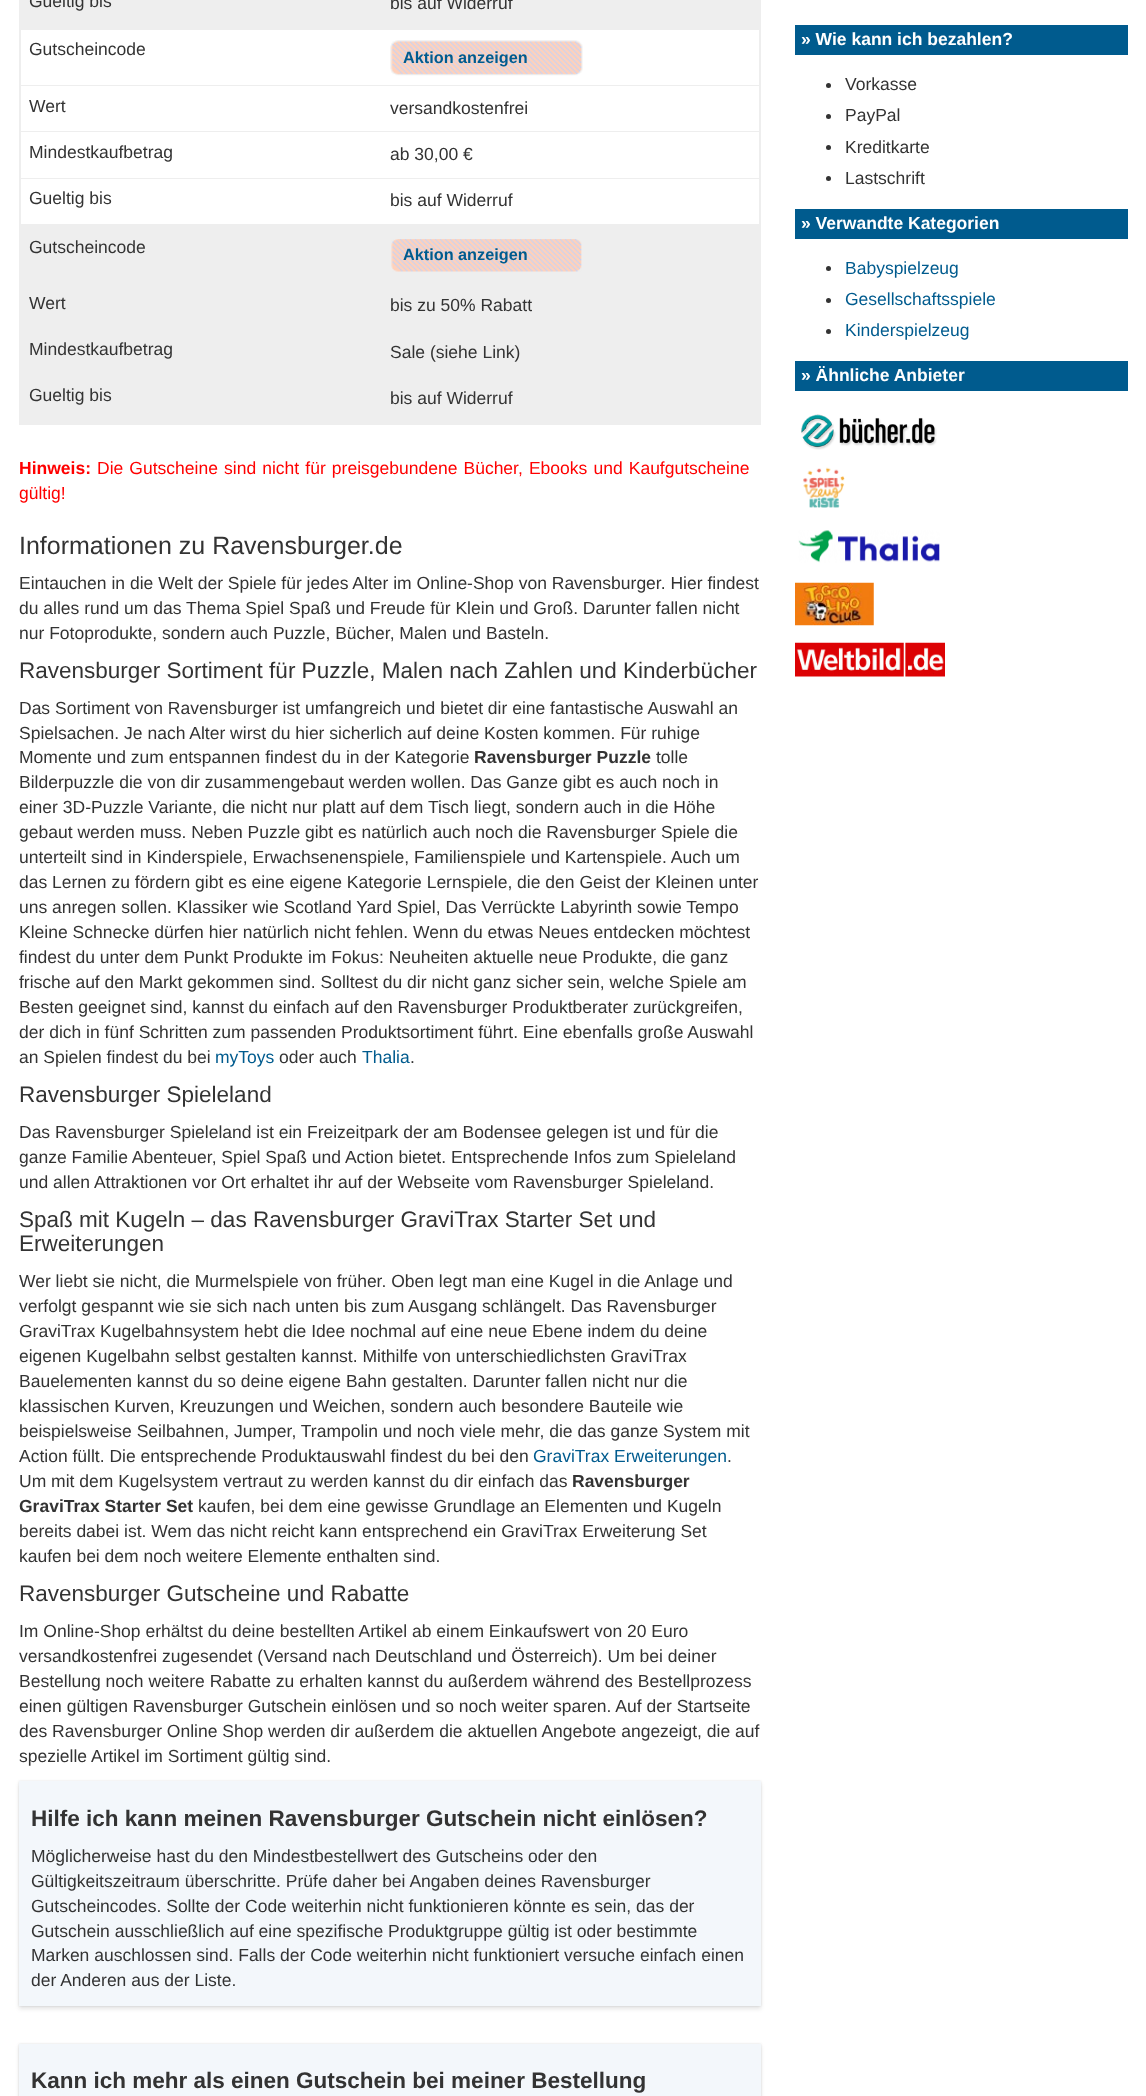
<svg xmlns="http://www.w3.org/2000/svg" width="1146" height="2096">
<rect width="100%" height="100%" fill="#fff"/>
<rect x="760" width="1" height="425" fill="#eee"/>
<rect x="19" y="424" width="742" height="1" fill="#eee"/>
<rect x="19" width="1" height="425" fill="#eee"/>
<rect x="20" width="740" height="29" fill="#eee"/>
<text x="29" y="7" style="font-family:Liberation Sans;font-size:17.5px;fill:#333">Gueltig bis</text>
<text x="390" y="9" style="font-family:Liberation Sans;font-size:17.5px;fill:#333">bis auf Widerruf</text>
<rect x="20.5" y="29.5" width="739" height="196" fill="none" stroke="#eee"/>
<rect x="21" y="85" width="738" height="1" fill="#eee"/>
<text x="29" y="55" style="font-family:Liberation Sans;font-size:17.5px;fill:#333">Gutscheincode</text>
<image x="390" y="40" width="193" height="36" href="media/1.png"/>
<text x="403" y="63" style="font-family:Liberation Sans;font-size:16.25px;font-weight:bold;fill:#005b8e">Aktion anzeigen</text>
<rect x="21" y="131" width="738" height="1" fill="#eee"/>
<text x="29" y="112" style="font-family:Liberation Sans;font-size:17.5px;fill:#333">Wert</text>
<text x="390" y="114" style="font-family:Liberation Sans;font-size:17.5px;fill:#333">versandkostenfrei</text>
<rect x="21" y="178" width="738" height="1" fill="#eee"/>
<text x="29" y="158" style="font-family:Liberation Sans;font-size:17.5px;fill:#333">Mindestkaufbetrag</text>
<text x="390" y="160" style="font-family:Liberation Sans;font-size:17.5px;fill:#333">ab 30,00 €</text>
<rect x="21" y="224" width="738" height="1" fill="#eee"/>
<text x="29" y="204" style="font-family:Liberation Sans;font-size:17.5px;fill:#333">Gueltig bis</text>
<text x="390" y="206" style="font-family:Liberation Sans;font-size:17.5px;fill:#333">bis auf Widerruf</text>
<rect x="20" y="226" width="740" height="198" fill="#eee"/>
<text x="29" y="253" style="font-family:Liberation Sans;font-size:17.5px;fill:#333">Gutscheincode</text>
<image x="391" y="239" width="191" height="33" href="media/2.png"/>
<text x="403" y="260" style="font-family:Liberation Sans;font-size:16.25px;font-weight:bold;fill:#005b8e">Aktion anzeigen</text>
<text x="29" y="309" style="font-family:Liberation Sans;font-size:17.5px;fill:#333">Wert</text>
<text x="390" y="311" style="font-family:Liberation Sans;font-size:17.5px;fill:#333">bis zu 50% Rabatt</text>
<text x="29" y="355" style="font-family:Liberation Sans;font-size:17.5px;fill:#333">Mindestkaufbetrag</text>
<text x="390" y="358" style="font-family:Liberation Sans;font-size:17.5px;fill:#333">Sale (siehe Link)</text>
<text x="29" y="401" style="font-family:Liberation Sans;font-size:17.5px;fill:#333">Gueltig bis</text>
<text x="390" y="404" style="font-family:Liberation Sans;font-size:17.5px;fill:#333">bis auf Widerruf</text>
<text x="19" y="474" style="font-family:Liberation Sans;font-size:17.5px;font-weight:bold;fill:#f00">Hinweis:</text>
<text x="97" y="474" word-spacing="1.25" style="font-family:Liberation Sans;font-size:17.5px;fill:#f00">Die Gutscheine sind nicht für preisgebundene Bücher, Ebooks und Kaufgutscheine</text>
<text x="19" y="499" style="font-family:Liberation Sans;font-size:17.5px;fill:#f00">gültig!</text>
<text x="19" y="554" style="font-family:Liberation Sans;font-size:25px;fill:#333">Informationen zu Ravensburger.de</text>
<text x="19" y="589" style="font-family:Liberation Sans;font-size:17.5px;fill:#333">Eintauchen in die Welt der Spiele für jedes Alter im Online-Shop von Ravensburger. Hier findest</text>
<text x="19" y="614" style="font-family:Liberation Sans;font-size:17.5px;fill:#333">du alles rund um das Thema Spiel Spaß und Freude für Klein und Groß. Darunter fallen nicht</text>
<text x="19" y="639" style="font-family:Liberation Sans;font-size:17.5px;fill:#333">nur Fotoprodukte, sondern auch Puzzle, Bücher, Malen und Basteln.</text>
<text x="19" y="678" style="font-family:Liberation Sans;font-size:22.5px;fill:#333">Ravensburger Sortiment für Puzzle, Malen nach Zahlen und Kinderbücher</text>
<text x="19" y="714" style="font-family:Liberation Sans;font-size:17.5px;fill:#333">Das Sortiment von Ravensburger ist umfangreich und bietet dir eine fantastische Auswahl an</text>
<text x="19" y="739" style="font-family:Liberation Sans;font-size:17.5px;fill:#333">Spielsachen. Je nach Alter wirst du hier sicherlich auf deine Kosten kommen. Für ruhige</text>
<text x="19" y="763" style="font-family:Liberation Sans;font-size:17.5px;fill:#333">Momente und zum entspannen findest du in der Kategorie</text>
<text x="474" y="763" style="font-family:Liberation Sans;font-size:17.5px;font-weight:bold;fill:#333">Ravensburger Puzzle</text>
<text x="656" y="763" style="font-family:Liberation Sans;font-size:17.5px;fill:#333">tolle</text>
<text x="19" y="788" style="font-family:Liberation Sans;font-size:17.5px;fill:#333">Bilderpuzzle die von dir zusammengebaut werden wollen. Das Ganze gibt es auch noch in</text>
<text x="19" y="813" style="font-family:Liberation Sans;font-size:17.5px;fill:#333">einer 3D-Puzzle Variante, die nicht nur platt auf dem Tisch liegt, sondern auch in die Höhe</text>
<text x="19" y="838" style="font-family:Liberation Sans;font-size:17.5px;fill:#333">gebaut werden muss. Neben Puzzle gibt es natürlich auch noch die Ravensburger Spiele die</text>
<text x="19" y="863" style="font-family:Liberation Sans;font-size:17.5px;fill:#333">unterteilt sind in Kinderspiele, Erwachsenenspiele, Familienspiele und Kartenspiele. Auch um</text>
<text x="19" y="888" style="font-family:Liberation Sans;font-size:17.5px;fill:#333">das Lernen zu fördern gibt es eine eigene Kategorie Lernspiele, die den Geist der Kleinen unter</text>
<text x="19" y="913" style="font-family:Liberation Sans;font-size:17.5px;fill:#333">uns anregen sollen. Klassiker wie Scotland Yard Spiel, Das Verrückte Labyrinth sowie Tempo</text>
<text x="19" y="938" style="font-family:Liberation Sans;font-size:17.5px;fill:#333">Kleine Schnecke dürfen hier natürlich nicht fehlen. Wenn du etwas Neues entdecken möchtest</text>
<text x="19" y="963" style="font-family:Liberation Sans;font-size:17.5px;fill:#333">findest du unter dem Punkt Produkte im Fokus: Neuheiten aktuelle neue Produkte, die ganz</text>
<text x="19" y="988" style="font-family:Liberation Sans;font-size:17.5px;fill:#333">frische auf den Markt gekommen sind. Solltest du dir nicht ganz sicher sein, welche Spiele am</text>
<text x="19" y="1013" style="font-family:Liberation Sans;font-size:17.5px;fill:#333">Besten geeignet sind, kannst du einfach auf den Ravensburger Produktberater zurückgreifen,</text>
<text x="19" y="1038" style="font-family:Liberation Sans;font-size:17.5px;fill:#333">der dich in fünf Schritten zum passenden Produktsortiment führt. Eine ebenfalls große Auswahl</text>
<text x="19" y="1063" style="font-family:Liberation Sans;font-size:17.5px;fill:#333">an Spielen findest du bei</text>
<text x="215" y="1063" style="font-family:Liberation Sans;font-size:17.5px;fill:#005b8e">myToys</text>
<text x="279" y="1063" style="font-family:Liberation Sans;font-size:17.5px;fill:#333">oder auch</text>
<text x="362" y="1063" style="font-family:Liberation Sans;font-size:17.5px;fill:#005b8e">Thalia</text>
<text x="410" y="1063" style="font-family:Liberation Sans;font-size:17.5px;fill:#333">.</text>
<text x="19" y="1102" style="font-family:Liberation Sans;font-size:22.5px;fill:#333">Ravensburger Spieleland</text>
<text x="19" y="1138" style="font-family:Liberation Sans;font-size:17.5px;fill:#333">Das Ravensburger Spieleland ist ein Freizeitpark der am Bodensee gelegen ist und für die</text>
<text x="19" y="1163" style="font-family:Liberation Sans;font-size:17.5px;fill:#333">ganze Familie Abenteuer, Spiel Spaß und Action bietet. Entsprechende Infos zum Spieleland</text>
<text x="19" y="1188" style="font-family:Liberation Sans;font-size:17.5px;fill:#333">und allen Attraktionen vor Ort erhaltet ihr auf der Webseite vom Ravensburger Spieleland.</text>
<text x="19" y="1227" style="font-family:Liberation Sans;font-size:22.5px;fill:#333">Spaß mit Kugeln – das Ravensburger GraviTrax Starter Set und</text>
<text x="19" y="1251" style="font-family:Liberation Sans;font-size:22.5px;fill:#333">Erweiterungen</text>
<text x="19" y="1287" style="font-family:Liberation Sans;font-size:17.5px;fill:#333">Wer liebt sie nicht, die Murmelspiele von früher. Oben legt man eine Kugel in die Anlage und</text>
<text x="19" y="1312" style="font-family:Liberation Sans;font-size:17.5px;fill:#333">verfolgt gespannt wie sie sich nach unten bis zum Ausgang schlängelt. Das Ravensburger</text>
<text x="19" y="1337" style="font-family:Liberation Sans;font-size:17.5px;fill:#333">GraviTrax Kugelbahnsystem hebt die Idee nochmal auf eine neue Ebene indem du deine</text>
<text x="19" y="1362" style="font-family:Liberation Sans;font-size:17.5px;fill:#333">eigenen Kugelbahn selbst gestalten kannst. Mithilfe von unterschiedlichsten GraviTrax</text>
<text x="19" y="1387" style="font-family:Liberation Sans;font-size:17.5px;fill:#333">Bauelementen kannst du so deine eigene Bahn gestalten. Darunter fallen nicht nur die</text>
<text x="19" y="1412" style="font-family:Liberation Sans;font-size:17.5px;fill:#333">klassischen Kurven, Kreuzungen und Weichen, sondern auch besondere Bauteile wie</text>
<text x="19" y="1437" style="font-family:Liberation Sans;font-size:17.5px;fill:#333">beispielsweise Seilbahnen, Jumper, Trampolin und noch viele mehr, die das ganze System mit</text>
<text x="19" y="1462" style="font-family:Liberation Sans;font-size:17.5px;fill:#333">Action füllt. Die entsprechende Produktauswahl findest du bei den</text>
<text x="533" y="1462" style="font-family:Liberation Sans;font-size:17.5px;fill:#005b8e">GraviTrax Erweiterungen</text>
<text x="727" y="1462" style="font-family:Liberation Sans;font-size:17.5px;fill:#333">.</text>
<text x="19" y="1487" style="font-family:Liberation Sans;font-size:17.5px;fill:#333">Um mit dem Kugelsystem vertraut zu werden kannst du dir einfach das</text>
<text x="572" y="1487" style="font-family:Liberation Sans;font-size:17.5px;font-weight:bold;fill:#333">Ravensburger</text>
<text x="19" y="1512" style="font-family:Liberation Sans;font-size:17.5px;font-weight:bold;fill:#333">GraviTrax Starter Set</text>
<text x="198" y="1512" style="font-family:Liberation Sans;font-size:17.5px;fill:#333">kaufen, bei dem eine gewisse Grundlage an Elementen und Kugeln</text>
<text x="19" y="1537" style="font-family:Liberation Sans;font-size:17.5px;fill:#333">bereits dabei ist. Wem das nicht reicht kann entsprechend ein GraviTrax Erweiterung Set</text>
<text x="19" y="1562" style="font-family:Liberation Sans;font-size:17.5px;fill:#333">kaufen bei dem noch weitere Elemente enthalten sind.</text>
<text x="19" y="1601" style="font-family:Liberation Sans;font-size:22.5px;fill:#333">Ravensburger Gutscheine und Rabatte</text>
<text x="19" y="1637" style="font-family:Liberation Sans;font-size:17.5px;fill:#333">Im Online-Shop erhältst du deine bestellten Artikel ab einem Einkaufswert von 20 Euro</text>
<text x="19" y="1662" style="font-family:Liberation Sans;font-size:17.5px;fill:#333">versandkostenfrei zugesendet (Versand nach Deutschland und Österreich). Um bei deiner</text>
<text x="19" y="1687" style="font-family:Liberation Sans;font-size:17.5px;fill:#333">Bestellung noch weitere Rabatte zu erhalten kannst du außerdem während des Bestellprozess</text>
<text x="19" y="1712" style="font-family:Liberation Sans;font-size:17.5px;fill:#333">einen gültigen Ravensburger Gutschein einlösen und so noch weiter sparen. Auf der Startseite</text>
<text x="19" y="1737" style="font-family:Liberation Sans;font-size:17.5px;fill:#333">des Ravensburger Online Shop werden dir außerdem die aktuellen Angebote angezeigt, die auf</text>
<text x="19" y="1762" style="font-family:Liberation Sans;font-size:17.5px;fill:#333">spezielle Artikel im Sortiment gültig sind.</text>
<rect x="19" y="1784" width="742" height="225" fill="#0000001a" filter="blur(2px)"/>
<rect x="19" y="1781" width="742" height="225" fill="#0000001a" filter="blur(1px)"/>
<rect x="19" y="1781" width="742" height="225" fill="#f3f7fb"/>
<text x="31" y="1826" style="font-family:Liberation Sans;font-size:22.5px;font-weight:bold;fill:#333">Hilfe ich kann meinen Ravensburger Gutschein nicht einlösen?</text>
<text x="31" y="1862" style="font-family:Liberation Sans;font-size:17.5px;fill:#333">Möglicherweise hast du den Mindestbestellwert des Gutscheins oder den</text>
<text x="31" y="1887" style="font-family:Liberation Sans;font-size:17.5px;fill:#333">Gültigkeitszeitraum überschritte. Prüfe daher bei Angaben deines Ravensburger</text>
<text x="31" y="1912" style="font-family:Liberation Sans;font-size:17.5px;fill:#333">Gutscheincodes. Sollte der Code weiterhin nicht funktionieren könnte es sein, das der</text>
<text x="31" y="1937" style="font-family:Liberation Sans;font-size:17.5px;fill:#333">Gutschein ausschließlich auf eine spezifische Produktgruppe gültig ist oder bestimmte</text>
<text x="31" y="1961" style="font-family:Liberation Sans;font-size:17.5px;fill:#333">Marken auschlossen sind. Falls der Code weiterhin nicht funktioniert versuche einfach einen</text>
<text x="31" y="1986" style="font-family:Liberation Sans;font-size:17.5px;fill:#333">der Anderen aus der Liste.</text>
<rect x="19" y="2046" width="742" height="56" fill="#0000001a" filter="blur(2px)"/>
<rect x="19" y="2044" width="742" height="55" fill="#0000001a" filter="blur(1px)"/>
<rect x="19" y="2044" width="742" height="52" fill="#f3f7fb"/>
<text x="31" y="2088" style="font-family:Liberation Sans;font-size:22.5px;font-weight:bold;fill:#333">Kann ich mehr als einen Gutschein bei meiner Bestellung</text>
<rect x="795" y="25" width="333" height="30" fill="#005b8e"/>
<text x="801" y="45" style="font-family:Liberation Sans;font-size:17.5px;font-weight:bold;fill:#fff">» Wie kann ich bezahlen?</text>
<circle cx="828.5" cy="85.5" r="2.5" fill="#333"/>
<text x="845" y="90" style="font-family:Liberation Sans;font-size:17.5px;fill:#333">Vorkasse</text>
<circle cx="828.5" cy="116.5" r="2.5" fill="#333"/>
<text x="845" y="121" style="font-family:Liberation Sans;font-size:17.5px;fill:#333">PayPal</text>
<circle cx="828.5" cy="147.5" r="2.5" fill="#333"/>
<text x="845" y="153" style="font-family:Liberation Sans;font-size:17.5px;fill:#333">Kreditkarte</text>
<circle cx="828.5" cy="178.5" r="2.5" fill="#333"/>
<text x="845" y="184" style="font-family:Liberation Sans;font-size:17.5px;fill:#333">Lastschrift</text>
<rect x="795" y="209" width="333" height="30" fill="#005b8e"/>
<text x="801" y="229" style="font-family:Liberation Sans;font-size:17.5px;font-weight:bold;fill:#fff">» Verwandte Kategorien</text>
<circle cx="828.5" cy="268.5" r="2.5" fill="#333"/>
<text x="845" y="274" style="font-family:Liberation Sans;font-size:17.5px;fill:#005b8e">Babyspielzeug</text>
<circle cx="828.5" cy="300.5" r="2.5" fill="#333"/>
<text x="845" y="305" style="font-family:Liberation Sans;font-size:17.5px;fill:#005b8e">Gesellschaftsspiele</text>
<circle cx="828.5" cy="331.5" r="2.5" fill="#333"/>
<text x="845" y="336" style="font-family:Liberation Sans;font-size:17.5px;fill:#005b8e">Kinderspielzeug</text>
<rect x="795" y="361" width="333" height="30" fill="#005b8e"/>
<text x="801" y="381" style="font-family:Liberation Sans;font-size:17.5px;font-weight:bold;fill:#fff">» Ähnliche Anbieter</text>
<image x="801" y="414" width="136" height="36" href="media/3.png"/>
<image x="803" y="467" width="42" height="41" href="media/4.png"/>
<image x="798" y="530" width="142" height="33" href="media/5.png"/>
<image x="795" y="582" width="79" height="44" href="media/6.png"/>
<image x="795" y="642" width="150" height="35" href="media/7.png"/>
</svg>
